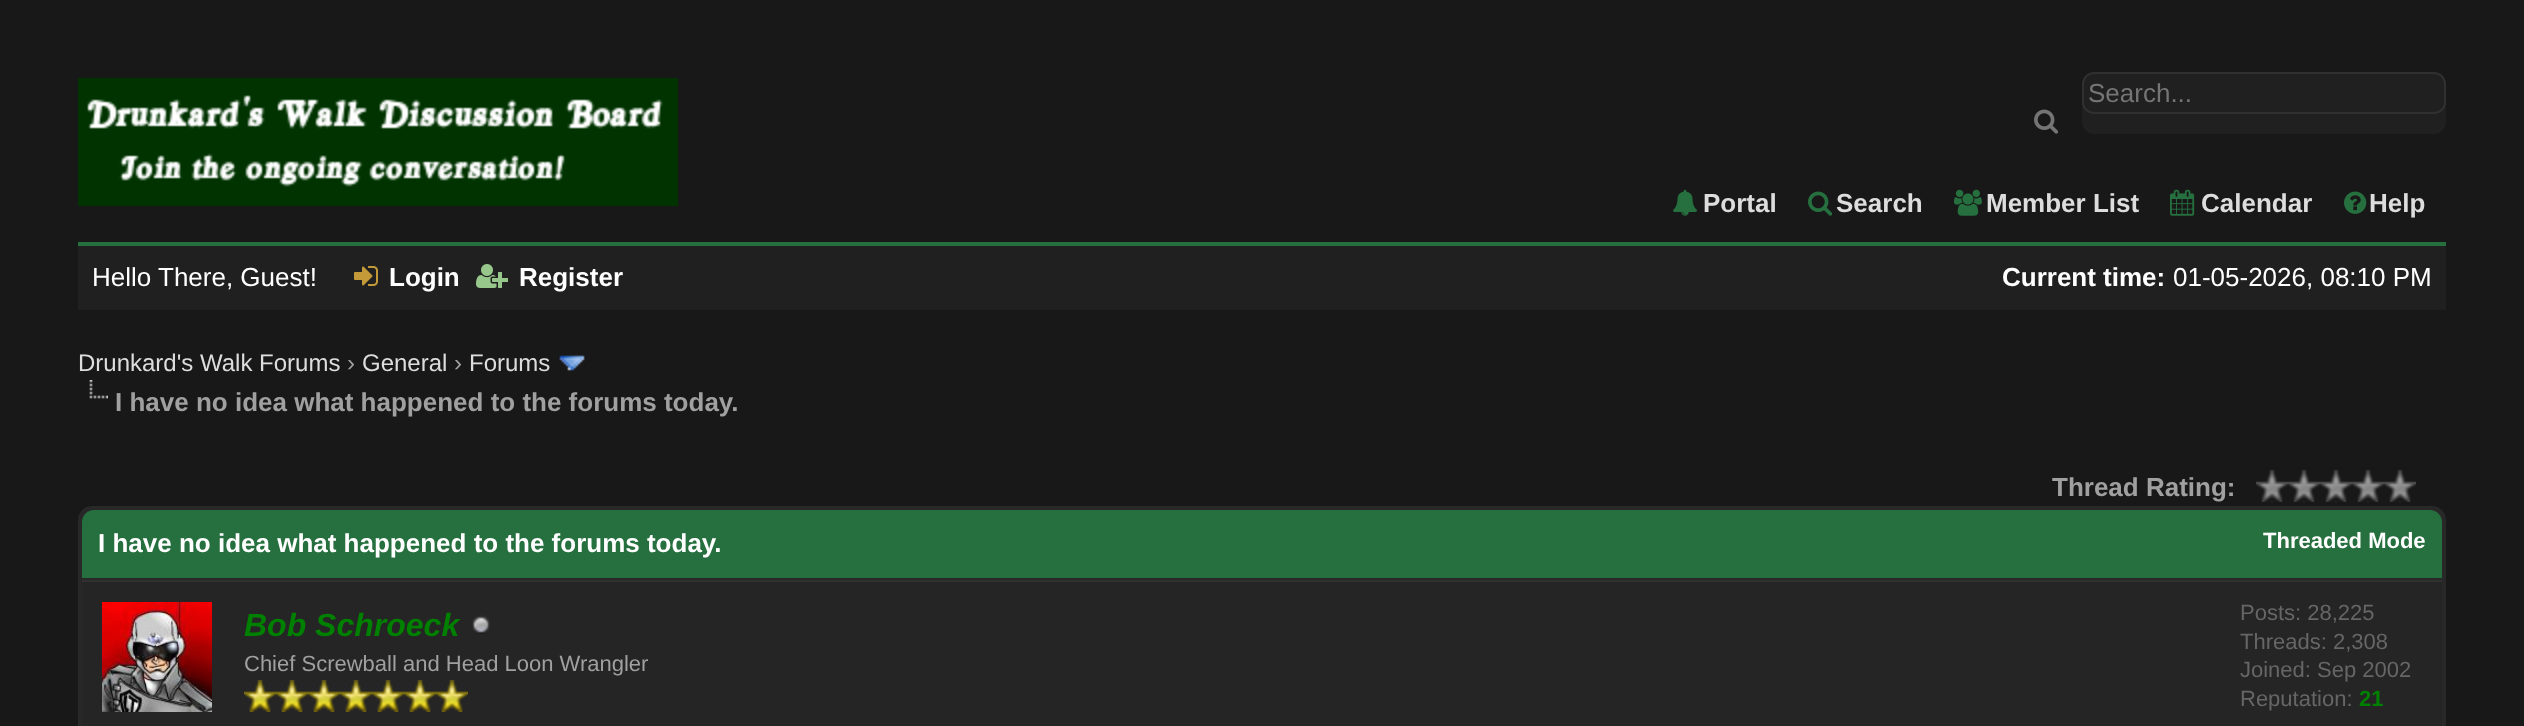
<svg xmlns="http://www.w3.org/2000/svg" width="2524" height="726">
<rect width="100%" height="100%" fill="#181818"/>
<rect x="2082" y="78" width="364" height="56" rx="12" fill="#202020"/>
<rect x="2083" y="73" width="362" height="40" rx="11" fill="#202020" stroke="#303030" stroke-width="2"/>
<text x="2088" y="102" style="font-family:Liberation Sans;font-size:26px;fill:#757575">Search...</text>
<image x="2034" y="109" width="25" height="25" href="media/1.png"/>
<image x="78" y="78" width="600" height="128" href="media/2.png"/>
<image x="1673" y="189" width="24" height="27" href="media/3.png"/>
<text x="1703" y="212" style="font-family:Liberation Sans;font-size:26px;font-weight:bold;fill:#ddd">Portal</text>
<image x="1808" y="191" width="25" height="25" href="media/4.png"/>
<text x="1836" y="212" style="font-family:Liberation Sans;font-size:26px;font-weight:bold;fill:#ddd">Search</text>
<image x="1954" y="189" width="28" height="27" href="media/5.png"/>
<text x="1986" y="212" style="font-family:Liberation Sans;font-size:26px;font-weight:bold;fill:#ddd">Member List</text>
<image x="2170" y="189" width="25" height="27" href="media/6.png"/>
<text x="2201" y="212" style="font-family:Liberation Sans;font-size:26px;font-weight:bold;fill:#ddd">Calendar</text>
<image x="2344" y="191" width="23" height="23" href="media/7.png"/>
<text x="2369" y="212" style="font-family:Liberation Sans;font-size:26px;font-weight:bold;fill:#ddd">Help</text>
<rect x="78" y="246" width="2368" height="64" fill="#202020"/>
<rect x="78" y="242" width="2368" height="4" fill="#266f3e"/>
<text x="92" y="286" style="font-family:Liberation Sans;font-size:26px;fill:#fff">Hello There, Guest!</text>
<image x="354" y="266" width="24" height="20" href="media/8.png"/>
<text x="389" y="286" style="font-family:Liberation Sans;font-size:26px;font-weight:bold;fill:#fff">Login</text>
<image x="476" y="264" width="32" height="24" href="media/9.png"/>
<text x="519" y="286" style="font-family:Liberation Sans;font-size:26px;font-weight:bold;fill:#fff">Register</text>
<text x="2002" y="286" style="font-family:Liberation Sans;font-size:26px;font-weight:bold;fill:#fff">Current time:</text>
<text x="2173" y="286" style="font-family:Liberation Sans;font-size:26px;fill:#fff">01-05-2026, 08:10 PM</text>
<text x="78" y="371" style="font-family:Liberation Sans;font-size:24px;fill:#ddd">Drunkard's Walk Forums</text>
<text x="347" y="371" style="font-family:Liberation Sans;font-size:24px;fill:#a0a0a0">›</text>
<text x="362" y="371" style="font-family:Liberation Sans;font-size:24px;fill:#ddd">General</text>
<text x="454" y="371" style="font-family:Liberation Sans;font-size:24px;fill:#a0a0a0">›</text>
<text x="469" y="371" style="font-family:Liberation Sans;font-size:24px;fill:#ddd">Forums</text>
<image x="559" y="355" width="26" height="16" href="media/10.png"/>
<image x="89" y="380" width="19" height="19" href="media/11.png"/>
<text x="115" y="411" style="font-family:Liberation Sans;font-size:26px;font-weight:bold;fill:#a0a0a0">I have no idea what happened to the forums today.</text>
<text x="2052" y="496" style="font-family:Liberation Sans;font-size:26px;font-weight:bold;fill:#a0a0a0">Thread Rating:</text>
<image x="2256" y="470" width="160" height="32" href="media/12.png"/>
<rect x="79" y="507" width="2366" height="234" rx="13" fill="#282828" stroke="#282828" stroke-width="2"/>
<path d="M94 510h2336c6.5 0 12 5.5 12 12v56h-2360v-56c0-6.5 5.5-12 12-12z" fill="#266f3e"/>
<text x="98" y="552" style="font-family:Liberation Sans;font-size:26px;font-weight:bold;fill:#fff">I have no idea what happened to the forums today.</text>
<text x="2263" y="548" style="font-family:Liberation Sans;font-size:22px;font-weight:bold;fill:#fff">Threaded Mode</text>
<rect x="82" y="582" width="2360" height="144" fill="#252525"/>
<rect x="82" y="580" width="2360" height="2" fill="#303030"/>
<image x="102" y="602" width="110" height="110" href="media/13.png"/>
<text x="244" y="636" style="font-family:Liberation Sans;font-size:32px;font-weight:bold;font-style:italic;fill:#008000">Bob Schroeck</text>
<image x="472" y="615" width="18" height="19" href="media/14.png"/>
<text x="244" y="671" style="font-family:Liberation Sans;font-size:22px;fill:#a0a0a0">Chief Screwball and Head Loon Wrangler</text>
<image x="244" y="680" width="32" height="32" href="media/15.png"/>
<image x="276" y="680" width="32" height="32" href="media/15.png"/>
<image x="308" y="680" width="32" height="32" href="media/15.png"/>
<image x="340" y="680" width="32" height="32" href="media/15.png"/>
<image x="372" y="680" width="32" height="32" href="media/15.png"/>
<image x="404" y="680" width="32" height="32" href="media/15.png"/>
<image x="436" y="680" width="32" height="32" href="media/15.png"/>
<text x="2240" y="620" style="font-family:Liberation Sans;font-size:22px;fill:#666">Posts: 28,225</text>
<text x="2240" y="649" style="font-family:Liberation Sans;font-size:22px;fill:#666">Threads: 2,308</text>
<text x="2240" y="677" style="font-family:Liberation Sans;font-size:22px;fill:#666">Joined: Sep 2002</text>
<text x="2240" y="706" style="font-family:Liberation Sans;font-size:22px;fill:#666">Reputation:</text>
<text x="2359" y="706" style="font-family:Liberation Sans;font-size:22px;font-weight:bold;fill:#008000">21</text>
</svg>
